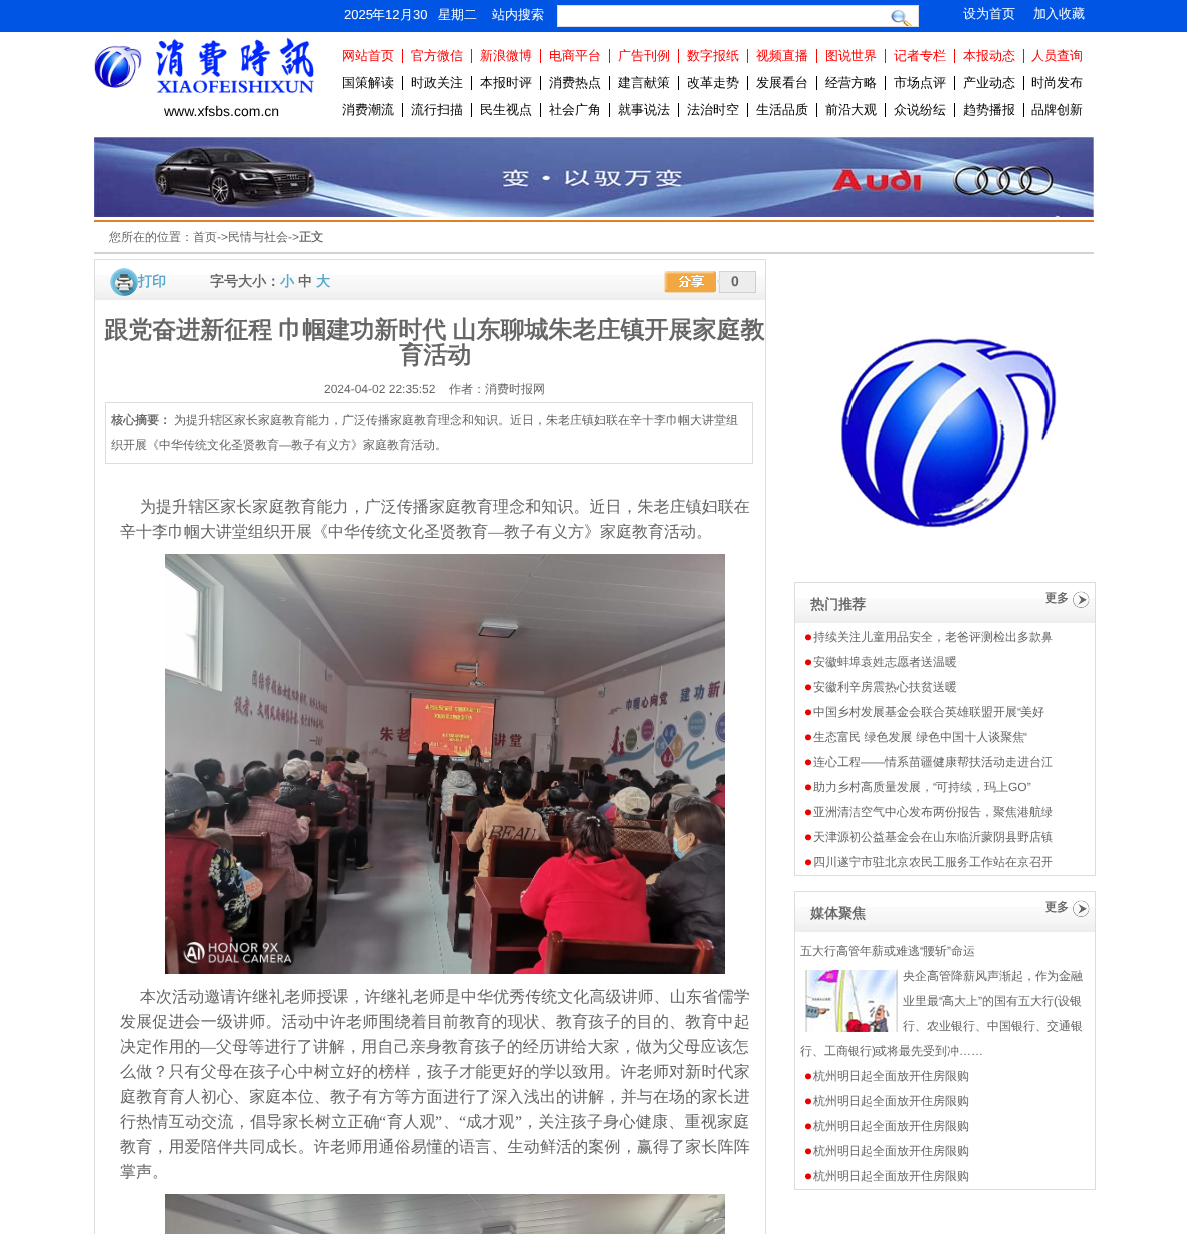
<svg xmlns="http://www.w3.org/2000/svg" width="1187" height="1234">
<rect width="100%" height="100%" fill="#fff"/>
<rect width="1187" height="32" fill="#0055e4"/>
<text x="344" y="19" style="font-family:Liberation Sans;font-size:13px;fill:#fff">2025</text>
<text x="372" y="19" style="font-family:WenQuanYi Zen Hei;font-size:13px;font-weight:500;fill:#fff">年</text>
<text x="385" y="19" style="font-family:Liberation Sans;font-size:13px;fill:#fff">12</text>
<text x="400" y="19" style="font-family:WenQuanYi Zen Hei;font-size:13px;font-weight:500;fill:#fff">月</text>
<text x="413" y="19" style="font-family:Liberation Sans;font-size:13px;fill:#fff">30</text>
<text x="438" y="19" style="font-family:WenQuanYi Zen Hei;font-size:13px;font-weight:500;fill:#fff">星期二</text>
<text x="492" y="19" style="font-family:WenQuanYi Zen Hei;font-size:13px;font-weight:500;fill:#fff">站内搜索</text>
<rect x="557.5" y="5.5" width="361" height="21" fill="#fff" stroke="#ddd"/>
<image x="891" y="9" width="21" height="17" href="media/1.png"/>
<text x="963" y="18" style="font-family:WenQuanYi Zen Hei;font-size:13px;font-weight:500;fill:#fff">设为首页</text>
<text x="1033" y="18" style="font-family:WenQuanYi Zen Hei;font-size:13px;font-weight:500;fill:#fff">加入收藏</text>
<image x="94" y="37" width="220" height="56" href="media/2.png"/>
<text x="164" y="116" style="font-family:Liberation Sans;font-size:14px;fill:#000">www.xfsbs.com.cn</text>
<rect x="402" y="49" width="1" height="14" fill="#f00"/>
<text x="342" y="60" style="font-family:WenQuanYi Zen Hei;font-size:13px;font-weight:500;fill:#f00">网站首页</text>
<rect x="471" y="49" width="1" height="14" fill="#f00"/>
<text x="411" y="60" style="font-family:WenQuanYi Zen Hei;font-size:13px;font-weight:500;fill:#f00">官方微信</text>
<rect x="540" y="49" width="1" height="14" fill="#f00"/>
<text x="480" y="60" style="font-family:WenQuanYi Zen Hei;font-size:13px;font-weight:500;fill:#f00">新浪微博</text>
<rect x="609" y="49" width="1" height="14" fill="#f00"/>
<text x="549" y="60" style="font-family:WenQuanYi Zen Hei;font-size:13px;font-weight:500;fill:#f00">电商平台</text>
<rect x="678" y="49" width="1" height="14" fill="#f00"/>
<text x="618" y="60" style="font-family:WenQuanYi Zen Hei;font-size:13px;font-weight:500;fill:#f00">广告刊例</text>
<rect x="747" y="49" width="1" height="14" fill="#f00"/>
<text x="687" y="60" style="font-family:WenQuanYi Zen Hei;font-size:13px;font-weight:500;fill:#f00">数字报纸</text>
<rect x="816" y="49" width="1" height="14" fill="#f00"/>
<text x="756" y="60" style="font-family:WenQuanYi Zen Hei;font-size:13px;font-weight:500;fill:#f00">视频直播</text>
<rect x="885" y="49" width="1" height="14" fill="#f00"/>
<text x="825" y="60" style="font-family:WenQuanYi Zen Hei;font-size:13px;font-weight:500;fill:#f00">图说世界</text>
<rect x="954" y="49" width="1" height="14" fill="#f00"/>
<text x="894" y="60" style="font-family:WenQuanYi Zen Hei;font-size:13px;font-weight:500;fill:#f00">记者专栏</text>
<rect x="1023" y="49" width="1" height="14" fill="#f00"/>
<text x="963" y="60" style="font-family:WenQuanYi Zen Hei;font-size:13px;font-weight:500;fill:#f00">本报动态</text>
<text x="1031" y="60" style="font-family:WenQuanYi Zen Hei;font-size:13px;font-weight:500;fill:#f00">人员查询</text>
<rect x="402" y="76" width="1" height="14" fill="#000"/>
<text x="342" y="87" style="font-family:WenQuanYi Zen Hei;font-size:13px;font-weight:500;fill:#000">国策解读</text>
<rect x="471" y="76" width="1" height="14" fill="#000"/>
<text x="411" y="87" style="font-family:WenQuanYi Zen Hei;font-size:13px;font-weight:500;fill:#000">时政关注</text>
<rect x="540" y="76" width="1" height="14" fill="#000"/>
<text x="480" y="87" style="font-family:WenQuanYi Zen Hei;font-size:13px;font-weight:500;fill:#000">本报时评</text>
<rect x="609" y="76" width="1" height="14" fill="#000"/>
<text x="549" y="87" style="font-family:WenQuanYi Zen Hei;font-size:13px;font-weight:500;fill:#000">消费热点</text>
<rect x="678" y="76" width="1" height="14" fill="#000"/>
<text x="618" y="87" style="font-family:WenQuanYi Zen Hei;font-size:13px;font-weight:500;fill:#000">建言献策</text>
<rect x="747" y="76" width="1" height="14" fill="#000"/>
<text x="687" y="87" style="font-family:WenQuanYi Zen Hei;font-size:13px;font-weight:500;fill:#000">改革走势</text>
<rect x="816" y="76" width="1" height="14" fill="#000"/>
<text x="756" y="87" style="font-family:WenQuanYi Zen Hei;font-size:13px;font-weight:500;fill:#000">发展看台</text>
<rect x="885" y="76" width="1" height="14" fill="#000"/>
<text x="825" y="87" style="font-family:WenQuanYi Zen Hei;font-size:13px;font-weight:500;fill:#000">经营方略</text>
<rect x="954" y="76" width="1" height="14" fill="#000"/>
<text x="894" y="87" style="font-family:WenQuanYi Zen Hei;font-size:13px;font-weight:500;fill:#000">市场点评</text>
<rect x="1023" y="76" width="1" height="14" fill="#000"/>
<text x="963" y="87" style="font-family:WenQuanYi Zen Hei;font-size:13px;font-weight:500;fill:#000">产业动态</text>
<text x="1031" y="87" style="font-family:WenQuanYi Zen Hei;font-size:13px;font-weight:500;fill:#000">时尚发布</text>
<rect x="402" y="103" width="1" height="14" fill="#000"/>
<text x="342" y="114" style="font-family:WenQuanYi Zen Hei;font-size:13px;font-weight:500;fill:#000">消费潮流</text>
<rect x="471" y="103" width="1" height="14" fill="#000"/>
<text x="411" y="114" style="font-family:WenQuanYi Zen Hei;font-size:13px;font-weight:500;fill:#000">流行扫描</text>
<rect x="540" y="103" width="1" height="14" fill="#000"/>
<text x="480" y="114" style="font-family:WenQuanYi Zen Hei;font-size:13px;font-weight:500;fill:#000">民生视点</text>
<rect x="609" y="103" width="1" height="14" fill="#000"/>
<text x="549" y="114" style="font-family:WenQuanYi Zen Hei;font-size:13px;font-weight:500;fill:#000">社会广角</text>
<rect x="678" y="103" width="1" height="14" fill="#000"/>
<text x="618" y="114" style="font-family:WenQuanYi Zen Hei;font-size:13px;font-weight:500;fill:#000">就事说法</text>
<rect x="747" y="103" width="1" height="14" fill="#000"/>
<text x="687" y="114" style="font-family:WenQuanYi Zen Hei;font-size:13px;font-weight:500;fill:#000">法治时空</text>
<rect x="816" y="103" width="1" height="14" fill="#000"/>
<text x="756" y="114" style="font-family:WenQuanYi Zen Hei;font-size:13px;font-weight:500;fill:#000">生活品质</text>
<rect x="885" y="103" width="1" height="14" fill="#000"/>
<text x="825" y="114" style="font-family:WenQuanYi Zen Hei;font-size:13px;font-weight:500;fill:#000">前沿大观</text>
<rect x="954" y="103" width="1" height="14" fill="#000"/>
<text x="894" y="114" style="font-family:WenQuanYi Zen Hei;font-size:13px;font-weight:500;fill:#000">众说纷纭</text>
<rect x="1023" y="103" width="1" height="14" fill="#000"/>
<text x="963" y="114" style="font-family:WenQuanYi Zen Hei;font-size:13px;font-weight:500;fill:#000">趋势播报</text>
<text x="1031" y="114" style="font-family:WenQuanYi Zen Hei;font-size:13px;font-weight:500;fill:#000">品牌创新</text>
<rect x="94" y="220" width="1000" height="2" fill="#de8225"/>
<image x="94" y="137" width="1000" height="80" href="media/3.png"/>
<rect x="94" y="252" width="1000" height="2" fill="#d4d3d3"/>
<text x="109" y="241" style="font-family:WenQuanYi Zen Hei;font-size:12px;font-weight:500;fill:#666">您所在的位置：首页</text>
<text x="217" y="241" style="font-family:Liberation Sans;font-size:12px;fill:#666">-&gt;</text>
<text x="228" y="241" style="font-family:WenQuanYi Zen Hei;font-size:12px;font-weight:500;fill:#666">民情与社会</text>
<text x="288" y="241" style="font-family:Liberation Sans;font-size:12px;fill:#666">-&gt;</text>
<text x="299" y="241" style="font-family:WenQuanYi Zen Hei;font-size:12px;font-weight:bold;fill:#666">正文</text>
<rect x="94.5" y="259.5" width="671" height="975" fill="none" stroke="#ddd"/>
<image x="95" y="275" width="670" height="25" href="media/4.png"/>
<image x="110" y="268" width="28" height="28" href="media/5.png"/>
<text x="138" y="286" style="font-family:WenQuanYi Zen Hei;font-size:14px;font-weight:bold;fill:#57a6cd">打印</text>
<text x="210" y="286" style="font-family:WenQuanYi Zen Hei;font-size:14px;font-weight:bold;fill:#666">字号大小：</text>
<text x="280" y="286" style="font-family:WenQuanYi Zen Hei;font-size:14px;font-weight:bold;fill:#57a6cd">小</text>
<text x="298" y="286" style="font-family:WenQuanYi Zen Hei;font-size:14px;font-weight:bold;fill:#666">中</text>
<text x="316" y="286" style="font-family:WenQuanYi Zen Hei;font-size:14px;font-weight:bold;fill:#57a6cd">大</text>
<image x="664" y="270" width="52" height="23" href="media/6.png"/>
<image x="717" y="271" width="39" height="22" href="media/7.png"/>
<text x="731" y="286" style="font-family:Liberation Sans;font-size:14px;font-weight:bold;fill:#666">0</text>
<text x="104" y="338" style="font-family:WenQuanYi Zen Hei;font-size:24px;font-weight:bold;fill:#666">跟党奋进新征程</text>
<text x="278" y="338" word-spacing="-1" style="font-family:WenQuanYi Zen Hei;font-size:24px;font-weight:bold;fill:#666">巾帼建功新时代 山东聊城朱老庄镇开展家庭教</text>
<text x="399" y="363" style="font-family:WenQuanYi Zen Hei;font-size:24px;font-weight:bold;fill:#666">育活动</text>
<text x="324" y="393" style="font-family:Liberation Sans;font-size:12px;fill:#666">2024-04-02 22:35:52</text>
<text x="449" y="393" style="font-family:WenQuanYi Zen Hei;font-size:12px;font-weight:500;fill:#666">作者：消费时报网</text>
<rect x="105.5" y="402.5" width="647" height="61" fill="none" stroke="#ddd"/>
<text x="111" y="424" style="font-family:WenQuanYi Zen Hei;font-size:12px;font-weight:bold;fill:#666">核心摘要：</text>
<text x="174" y="424" style="font-family:WenQuanYi Zen Hei;font-size:12px;font-weight:500;fill:#666">为提升辖区家长家庭教育能力，广泛传播家庭教育理念和知识。近日，朱老庄镇妇联在辛十李巾帼大讲堂组</text>
<text x="111" y="449" style="font-family:WenQuanYi Zen Hei;font-size:12px;font-weight:500;fill:#666">织开展《中华传统文化圣贤教育</text>
<text x="279" y="449" style="font-family:Liberation Sans;font-size:12px;fill:#666">—</text>
<text x="291" y="449" style="font-family:WenQuanYi Zen Hei;font-size:12px;font-weight:500;fill:#666">教子有义方》家庭教育活动。</text>
<text x="140" y="512" style="font-family:WenQuanYi Zen Hei;font-size:16px;font-weight:500;letter-spacing:0.05px;fill:#666">为提升辖区家长家庭教育能力，广泛传播家庭教育理念和知识。近日，朱老庄镇妇联在</text>
<text x="120" y="537" style="font-family:WenQuanYi Zen Hei;font-size:16px;font-weight:500;fill:#666">辛十李巾帼大讲堂组织开展《中华传统文化圣贤教育</text>
<text x="488" y="537" style="font-family:Liberation Serif;font-size:16px;fill:#666">—</text>
<text x="504" y="537" style="font-family:WenQuanYi Zen Hei;font-size:16px;font-weight:500;fill:#666">教子有义方》家庭教育活动。</text>
<image x="165" y="554" width="560" height="420" href="media/8.png"/>
<text x="140" y="1002" style="font-family:WenQuanYi Zen Hei;font-size:16px;font-weight:500;letter-spacing:0.05px;fill:#666">本次活动邀请许继礼老师授课，许继礼老师是中华优秀传统文化高级讲师、山东省儒学</text>
<text x="120" y="1027" style="font-family:WenQuanYi Zen Hei;font-size:16px;font-weight:500;letter-spacing:0.15px;fill:#666">发展促进会一级讲师。活动中许老师围绕着目前教育的现状、教育孩子的目的、教育中起</text>
<text x="120" y="1052" style="font-family:WenQuanYi Zen Hei;font-size:16px;font-weight:500;letter-spacing:0.15px;fill:#666">决定作用的</text>
<text x="200" y="1052" style="font-family:Liberation Serif;font-size:16px;letter-spacing:0.15px;fill:#666">—</text>
<text x="216" y="1052" style="font-family:WenQuanYi Zen Hei;font-size:16px;font-weight:500;letter-spacing:0.15px;fill:#666">父母等进行了讲解，用自己亲身教育孩子的经历讲给大家，做为父母应该怎</text>
<text x="120" y="1077" style="font-family:WenQuanYi Zen Hei;font-size:16px;font-weight:500;letter-spacing:0.15px;fill:#666">么做？只有父母在孩子心中树立好的榜样，孩子才能更好的学以致用。许老师对新时代家</text>
<text x="120" y="1102" style="font-family:WenQuanYi Zen Hei;font-size:16px;font-weight:500;letter-spacing:0.15px;fill:#666">庭教育育人初心、家庭本位、教子有方等方面进行了深入浅出的讲解，并与在场的家长进</text>
<text x="120" y="1127" style="font-family:WenQuanYi Zen Hei;font-size:16px;font-weight:500;letter-spacing:0.25px;fill:#666">行热情互动交流，倡导家长树立正确</text>
<text x="379" y="1127" style="font-family:Liberation Serif;font-size:16px;letter-spacing:0.25px;fill:#666">“</text>
<text x="387" y="1127" style="font-family:WenQuanYi Zen Hei;font-size:16px;font-weight:500;letter-spacing:0.25px;fill:#666">育人观</text>
<text x="435" y="1127" style="font-family:Liberation Serif;font-size:16px;letter-spacing:0.25px;fill:#666">”</text>
<text x="459" y="1127" style="font-family:Liberation Serif;font-size:16px;letter-spacing:0.25px;fill:#666">“</text>
<text x="466" y="1127" style="font-family:WenQuanYi Zen Hei;font-size:16px;font-weight:500;letter-spacing:0.25px;fill:#666">成才观</text>
<text x="515" y="1127" style="font-family:Liberation Serif;font-size:16px;letter-spacing:0.25px;fill:#666">”</text>
<text x="522" y="1127" style="font-family:WenQuanYi Zen Hei;font-size:16px;font-weight:500;letter-spacing:0.25px;fill:#666">，关注孩子身心健康、重视家庭</text>
<text x="443" y="1127" style="font-family:WenQuanYi Zen Hei;font-size:16px;font-weight:500;letter-spacing:0.25px;fill:#666">、</text>
<text x="120" y="1152" style="font-family:WenQuanYi Zen Hei;font-size:16px;font-weight:500;letter-spacing:0.15px;fill:#666">教育，用爱陪伴共同成长。许老师用通俗易懂的语言、生动鲜活的案例，赢得了家长阵阵</text>
<text x="120" y="1177" style="font-family:WenQuanYi Zen Hei;font-size:16px;font-weight:500;fill:#666">掌声。</text>
<image x="165" y="1194" width="560" height="40" href="media/9.png"/>
<image x="836" y="334" width="221" height="196" href="media/10.png"/>
<rect x="794.5" y="582.5" width="301" height="293" fill="none" stroke="#ddd"/>
<image x="795" y="598" width="300" height="25" href="media/11.png"/>
<text x="810" y="609" style="font-family:WenQuanYi Zen Hei;font-size:14px;font-weight:bold;fill:#666">热门推荐</text>
<image x="1073" y="591" width="17" height="17" href="media/12.png"/>
<text x="1045" y="602" style="font-family:WenQuanYi Zen Hei;font-size:12px;font-weight:bold;fill:#666">更多</text>
<image x="805" y="634" width="6" height="7" href="media/13.png"/>
<text x="813" y="641" style="font-family:WenQuanYi Zen Hei;font-size:12px;font-weight:500;fill:#666">持续关注儿童用品安全，老爸评测检出多款鼻</text>
<image x="805" y="659" width="6" height="7" href="media/13.png"/>
<text x="813" y="666" style="font-family:WenQuanYi Zen Hei;font-size:12px;font-weight:500;fill:#666">安徽蚌埠袁姓志愿者送温暖</text>
<image x="805" y="684" width="6" height="7" href="media/13.png"/>
<text x="813" y="691" style="font-family:WenQuanYi Zen Hei;font-size:12px;font-weight:500;fill:#666">安徽利辛房震热心扶贫送暖</text>
<image x="805" y="709" width="6" height="7" href="media/13.png"/>
<text x="813" y="716" style="font-family:WenQuanYi Zen Hei;font-size:12px;font-weight:500;fill:#666">中国乡村发展基金会联合英雄联盟开展</text>
<text x="1017" y="716" style="font-family:Liberation Sans;font-size:12px;fill:#666">“</text>
<text x="1020" y="716" style="font-family:WenQuanYi Zen Hei;font-size:12px;font-weight:500;fill:#666">美好</text>
<image x="805" y="734" width="6" height="7" href="media/13.png"/>
<text x="813" y="741" style="font-family:WenQuanYi Zen Hei;font-size:12px;font-weight:500;fill:#666">生态富民 绿色发展 绿色中国十人谈聚焦</text>
<text x="1023" y="741" style="font-family:Liberation Sans;font-size:12px;fill:#666">“</text>
<image x="805" y="759" width="6" height="7" href="media/13.png"/>
<text x="813" y="766" style="font-family:WenQuanYi Zen Hei;font-size:12px;font-weight:500;fill:#666">连心工程</text>
<text x="861" y="766" style="font-family:Liberation Sans;font-size:12px;fill:#666">——</text>
<text x="885" y="766" style="font-family:WenQuanYi Zen Hei;font-size:12px;font-weight:500;fill:#666">情系苗疆健康帮扶活动走进台江</text>
<image x="805" y="784" width="6" height="7" href="media/13.png"/>
<text x="813" y="791" style="font-family:WenQuanYi Zen Hei;font-size:12px;font-weight:500;fill:#666">助力乡村高质量发展，</text>
<text x="933" y="791" style="font-family:Liberation Sans;font-size:12px;fill:#666">“</text>
<text x="936" y="791" style="font-family:WenQuanYi Zen Hei;font-size:12px;font-weight:500;fill:#666">可持续，玛上</text>
<text x="1008" y="791" style="font-family:Liberation Sans;font-size:12px;fill:#666">GO”</text>
<image x="805" y="809" width="6" height="7" href="media/13.png"/>
<text x="813" y="816" style="font-family:WenQuanYi Zen Hei;font-size:12px;font-weight:500;fill:#666">亚洲清洁空气中心发布两份报告，聚焦港航绿</text>
<image x="805" y="834" width="6" height="7" href="media/13.png"/>
<text x="813" y="841" style="font-family:WenQuanYi Zen Hei;font-size:12px;font-weight:500;fill:#666">天津源初公益基金会在山东临沂蒙阴县野店镇</text>
<image x="805" y="859" width="6" height="7" href="media/13.png"/>
<text x="813" y="866" style="font-family:WenQuanYi Zen Hei;font-size:12px;font-weight:500;fill:#666">四川遂宁市驻北京农民工服务工作站在京召开</text>
<rect x="794.5" y="891.5" width="301" height="298" fill="none" stroke="#ddd"/>
<image x="795" y="907" width="300" height="25" href="media/11.png"/>
<text x="810" y="918" style="font-family:WenQuanYi Zen Hei;font-size:14px;font-weight:bold;fill:#666">媒体聚焦</text>
<image x="1073" y="900" width="17" height="17" href="media/12.png"/>
<text x="1045" y="911" style="font-family:WenQuanYi Zen Hei;font-size:12px;font-weight:bold;fill:#666">更多</text>
<text x="800" y="955" style="font-family:WenQuanYi Zen Hei;font-size:12px;font-weight:500;fill:#666">五大行高管年薪或难逃</text>
<text x="920" y="955" style="font-family:Liberation Sans;font-size:12px;fill:#666">“</text>
<text x="923" y="955" style="font-family:WenQuanYi Zen Hei;font-size:12px;font-weight:500;fill:#666">腰斩</text>
<text x="947" y="955" style="font-family:Liberation Sans;font-size:12px;fill:#666">”</text>
<text x="951" y="955" style="font-family:WenQuanYi Zen Hei;font-size:12px;font-weight:500;fill:#666">命运</text>
<image x="805" y="970" width="93" height="62" href="media/14.png"/>
<text x="903" y="980" style="font-family:WenQuanYi Zen Hei;font-size:12px;font-weight:500;fill:#666">央企高管降薪风声渐起，作为金融</text>
<text x="903" y="1005" style="font-family:WenQuanYi Zen Hei;font-size:12px;font-weight:500;fill:#666">业里最</text>
<text x="939" y="1005" style="font-family:Liberation Sans;font-size:12px;fill:#666">“</text>
<text x="942" y="1005" style="font-family:WenQuanYi Zen Hei;font-size:12px;font-weight:500;fill:#666">高大上</text>
<text x="978" y="1005" style="font-family:Liberation Sans;font-size:12px;fill:#666">”</text>
<text x="982" y="1005" style="font-family:WenQuanYi Zen Hei;font-size:12px;font-weight:500;fill:#666">的国有五大行</text>
<text x="1054" y="1005" style="font-family:Liberation Sans;font-size:12px;fill:#666">(</text>
<text x="1058" y="1005" style="font-family:WenQuanYi Zen Hei;font-size:12px;font-weight:500;fill:#666">设银</text>
<text x="903" y="1030" style="font-family:WenQuanYi Zen Hei;font-size:12px;font-weight:500;fill:#666">行、农业银行、中国银行、交通银</text>
<text x="800" y="1055" style="font-family:WenQuanYi Zen Hei;font-size:12px;font-weight:500;fill:#666">行、工商银行</text>
<text x="872" y="1055" style="font-family:Liberation Sans;font-size:12px;fill:#666">)</text>
<text x="875" y="1055" style="font-family:WenQuanYi Zen Hei;font-size:12px;font-weight:500;fill:#666">或将最先受到冲</text>
<text x="959" y="1055" style="font-family:Liberation Sans;font-size:12px;fill:#666">……</text>
<image x="805" y="1073" width="6" height="7" href="media/13.png"/>
<text x="813" y="1080" style="font-family:WenQuanYi Zen Hei;font-size:12px;font-weight:500;fill:#666">杭州明日起全面放开住房限购</text>
<image x="805" y="1098" width="6" height="7" href="media/13.png"/>
<text x="813" y="1105" style="font-family:WenQuanYi Zen Hei;font-size:12px;font-weight:500;fill:#666">杭州明日起全面放开住房限购</text>
<image x="805" y="1123" width="6" height="7" href="media/13.png"/>
<text x="813" y="1130" style="font-family:WenQuanYi Zen Hei;font-size:12px;font-weight:500;fill:#666">杭州明日起全面放开住房限购</text>
<image x="805" y="1148" width="6" height="7" href="media/13.png"/>
<text x="813" y="1155" style="font-family:WenQuanYi Zen Hei;font-size:12px;font-weight:500;fill:#666">杭州明日起全面放开住房限购</text>
<image x="805" y="1173" width="6" height="7" href="media/13.png"/>
<text x="813" y="1180" style="font-family:WenQuanYi Zen Hei;font-size:12px;font-weight:500;fill:#666">杭州明日起全面放开住房限购</text>
</svg>
